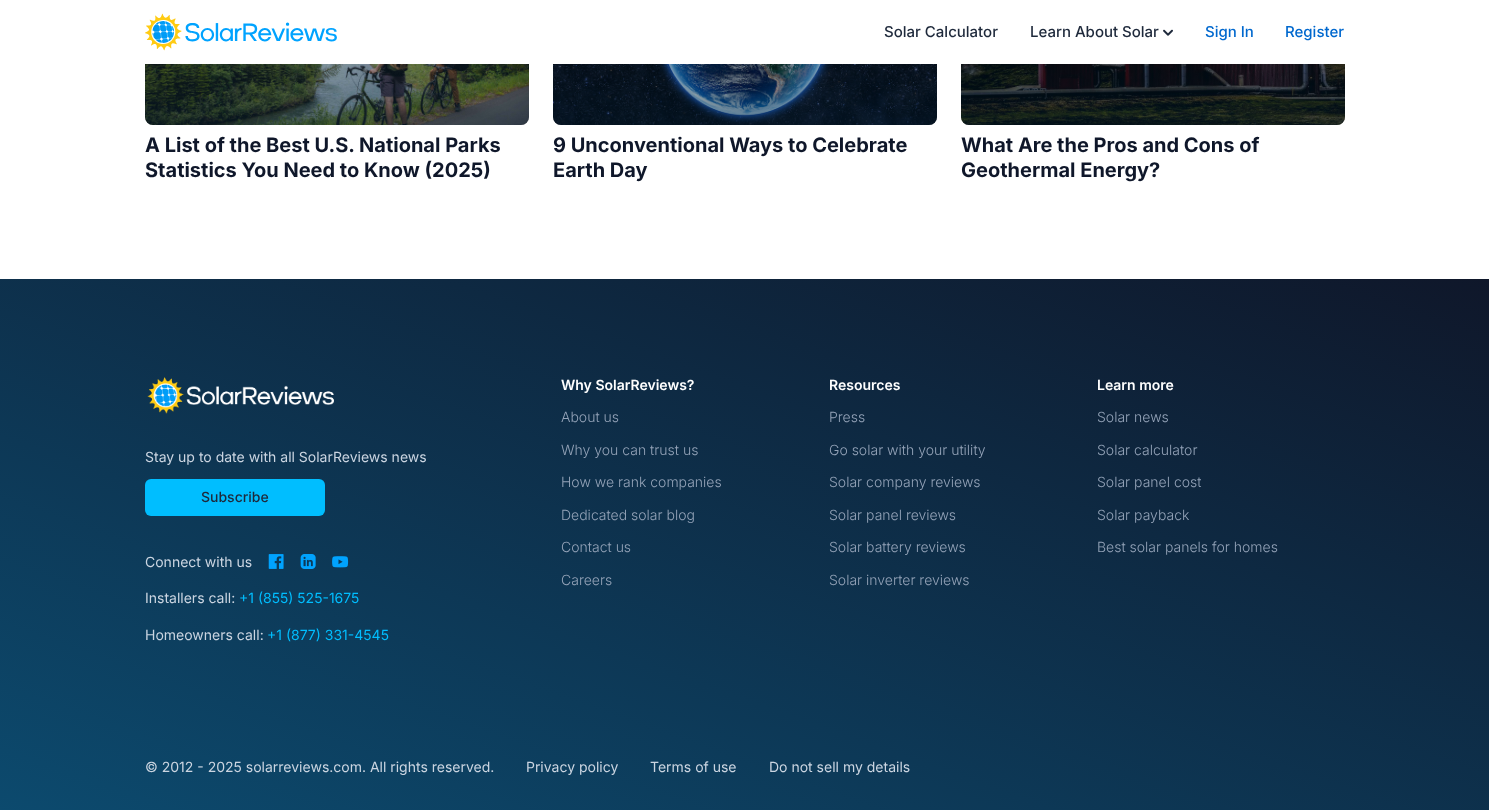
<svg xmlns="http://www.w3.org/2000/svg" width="1489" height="810">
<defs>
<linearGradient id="g1" gradientUnits="userSpaceOnUse" x1="337" y1="-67" x2="337" y2="125"><stop offset="0" stop-color="#001c30" stop-opacity="0"/><stop offset="1" stop-color="#001c30" stop-opacity="0.5"/></linearGradient>
<linearGradient id="g2" gradientUnits="userSpaceOnUse" x1="745" y1="-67" x2="745" y2="125"><stop offset="0" stop-color="#001c30" stop-opacity="0"/><stop offset="1" stop-color="#001c30" stop-opacity="0.5"/></linearGradient>
<linearGradient id="g3" gradientUnits="userSpaceOnUse" x1="1153" y1="-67" x2="1153" y2="125"><stop offset="0" stop-color="#001c30" stop-opacity="0"/><stop offset="1" stop-color="#001c30" stop-opacity="0.5"/></linearGradient>
<linearGradient id="g4" gradientUnits="userSpaceOnUse" x1="577" y1="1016" x2="912" y2="73"><stop offset="0" stop-color="#0c4a6e"/><stop offset="1" stop-color="#0f172a"/></linearGradient>
</defs>
<rect width="100%" height="100%" fill="#fff"/>
<image x="145" y="64" width="384" height="61" href="media/3.png"/>
<rect x="145" y="-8" width="384" height="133" rx="8" fill="url(#g1)"/>
<image x="553" y="64" width="384" height="61" href="media/4.png"/>
<rect x="553" y="-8" width="384" height="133" rx="8" fill="url(#g2)"/>
<image x="961" y="64" width="384" height="61" href="media/5.png"/>
<rect x="961" y="-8" width="384" height="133" rx="8" fill="url(#g3)"/>
<rect x="145" width="1200" height="64" fill="#fff"/>
<image x="145" y="13" width="192" height="38" href="media/1.png"/>
<text x="884" y="37" style="font-family:Inter;font-size:15px;font-weight:500;fill:#1e293b">Solar Calculator</text>
<text x="1030" y="37" style="font-family:Inter;font-size:15px;font-weight:500;fill:#1e293b">Learn About Solar</text>
<image x="1163" y="29" width="10" height="7" href="media/2.png"/>
<text x="1205" y="37" style="font-family:Inter;font-size:15px;font-weight:500;fill:#0068ce">Sign In</text>
<text x="1285" y="37" style="font-family:Inter;font-size:15px;font-weight:500;fill:#0068ce">Register</text>
<text x="145" y="152" style="font-family:Inter;font-size:20px;font-weight:bold;fill:#0f172a">A List of the Best U.S. National Parks</text>
<text x="145" y="177" style="font-family:Inter;font-size:20px;font-weight:bold;fill:#0f172a">Statistics You Need to Know (2025)</text>
<text x="553" y="152" style="font-family:Inter;font-size:20px;font-weight:bold;fill:#0f172a">9 Unconventional Ways to Celebrate</text>
<text x="553" y="177" style="font-family:Inter;font-size:20px;font-weight:bold;fill:#0f172a">Earth Day</text>
<text x="961" y="152" style="font-family:Inter;font-size:20px;font-weight:bold;fill:#0f172a">What Are the Pros and Cons of</text>
<text x="961" y="177" style="font-family:Inter;font-size:20px;font-weight:bold;fill:#0f172a">Geothermal Energy?</text>
<rect y="279" width="1489" height="531" fill="url(#g4)"/>
<image x="147" y="377" width="187" height="37" href="media/6.png"/>
<text x="145" y="462" style="font-family:Inter;font-size:14px;fill:#cbd5e1">Stay up to date with all SolarReviews news</text>
<rect x="145" y="479" width="180" height="37" rx="6" fill="#00beff"/>
<text x="201" y="502" style="font-family:Inter;font-size:14px;font-weight:500;fill:#1e293b">Subscribe</text>
<text x="145" y="567" style="font-family:Inter;font-size:14px;fill:#cbd5e1">Connect with us</text>
<image x="268" y="554" width="16" height="15" href="media/7.png"/>
<image x="300" y="554" width="16" height="15" href="media/8.png"/>
<image x="332" y="556" width="17" height="12" href="media/9.png"/>
<text x="145" y="603" style="font-family:Inter;font-size:14px;fill:#cbd5e1">Installers call:</text>
<text x="239" y="603" style="font-family:Inter;font-size:14px;fill:#00beff">+1 (855) 525-1675</text>
<text x="145" y="640" style="font-family:Inter;font-size:14px;fill:#cbd5e1">Homeowners call:</text>
<text x="267" y="640" style="font-family:Inter;font-size:14px;fill:#00beff">+1 (877) 331-4545</text>
<text x="561" y="390" style="font-family:Inter;font-size:14px;font-weight:600;fill:#fff">Why SolarReviews?</text>
<text x="561" y="422" style="font-family:Inter;font-size:14px;font-weight:300;fill:#94a3b8">About us</text>
<text x="561" y="455" style="font-family:Inter;font-size:14px;font-weight:300;fill:#94a3b8">Why you can trust us</text>
<text x="561" y="487" style="font-family:Inter;font-size:14px;font-weight:300;fill:#94a3b8">How we rank companies</text>
<text x="561" y="520" style="font-family:Inter;font-size:14px;font-weight:300;fill:#94a3b8">Dedicated solar blog</text>
<text x="561" y="552" style="font-family:Inter;font-size:14px;font-weight:300;fill:#94a3b8">Contact us</text>
<text x="561" y="585" style="font-family:Inter;font-size:14px;font-weight:300;fill:#94a3b8">Careers</text>
<text x="829" y="390" style="font-family:Inter;font-size:14px;font-weight:600;fill:#fff">Resources</text>
<text x="829" y="422" style="font-family:Inter;font-size:14px;font-weight:300;fill:#94a3b8">Press</text>
<text x="829" y="455" style="font-family:Inter;font-size:14px;font-weight:300;fill:#94a3b8">Go solar with your utility</text>
<text x="829" y="487" style="font-family:Inter;font-size:14px;font-weight:300;fill:#94a3b8">Solar company reviews</text>
<text x="829" y="520" style="font-family:Inter;font-size:14px;font-weight:300;fill:#94a3b8">Solar panel reviews</text>
<text x="829" y="552" style="font-family:Inter;font-size:14px;font-weight:300;fill:#94a3b8">Solar battery reviews</text>
<text x="829" y="585" style="font-family:Inter;font-size:14px;font-weight:300;fill:#94a3b8">Solar inverter reviews</text>
<text x="1097" y="390" style="font-family:Inter;font-size:14px;font-weight:600;fill:#fff">Learn more</text>
<text x="1097" y="422" style="font-family:Inter;font-size:14px;font-weight:300;fill:#94a3b8">Solar news</text>
<text x="1097" y="455" style="font-family:Inter;font-size:14px;font-weight:300;fill:#94a3b8">Solar calculator</text>
<text x="1097" y="487" style="font-family:Inter;font-size:14px;font-weight:300;fill:#94a3b8">Solar panel cost</text>
<text x="1097" y="520" style="font-family:Inter;font-size:14px;font-weight:300;fill:#94a3b8">Solar payback</text>
<text x="1097" y="552" style="font-family:Inter;font-size:14px;font-weight:300;fill:#94a3b8">Best solar panels for homes</text>
<text x="145" y="772" style="font-family:Inter;font-size:14px;fill:#cbd5e1">© 2012 - 2025 solarreviews.com. All rights reserved.</text>
<text x="526" y="772" style="font-family:Inter;font-size:14px;fill:#cbd5e1">Privacy policy</text>
<text x="650" y="772" style="font-family:Inter;font-size:14px;fill:#cbd5e1">Terms of use</text>
<text x="769" y="772" style="font-family:Inter;font-size:14px;fill:#cbd5e1">Do not sell my details</text>
</svg>
